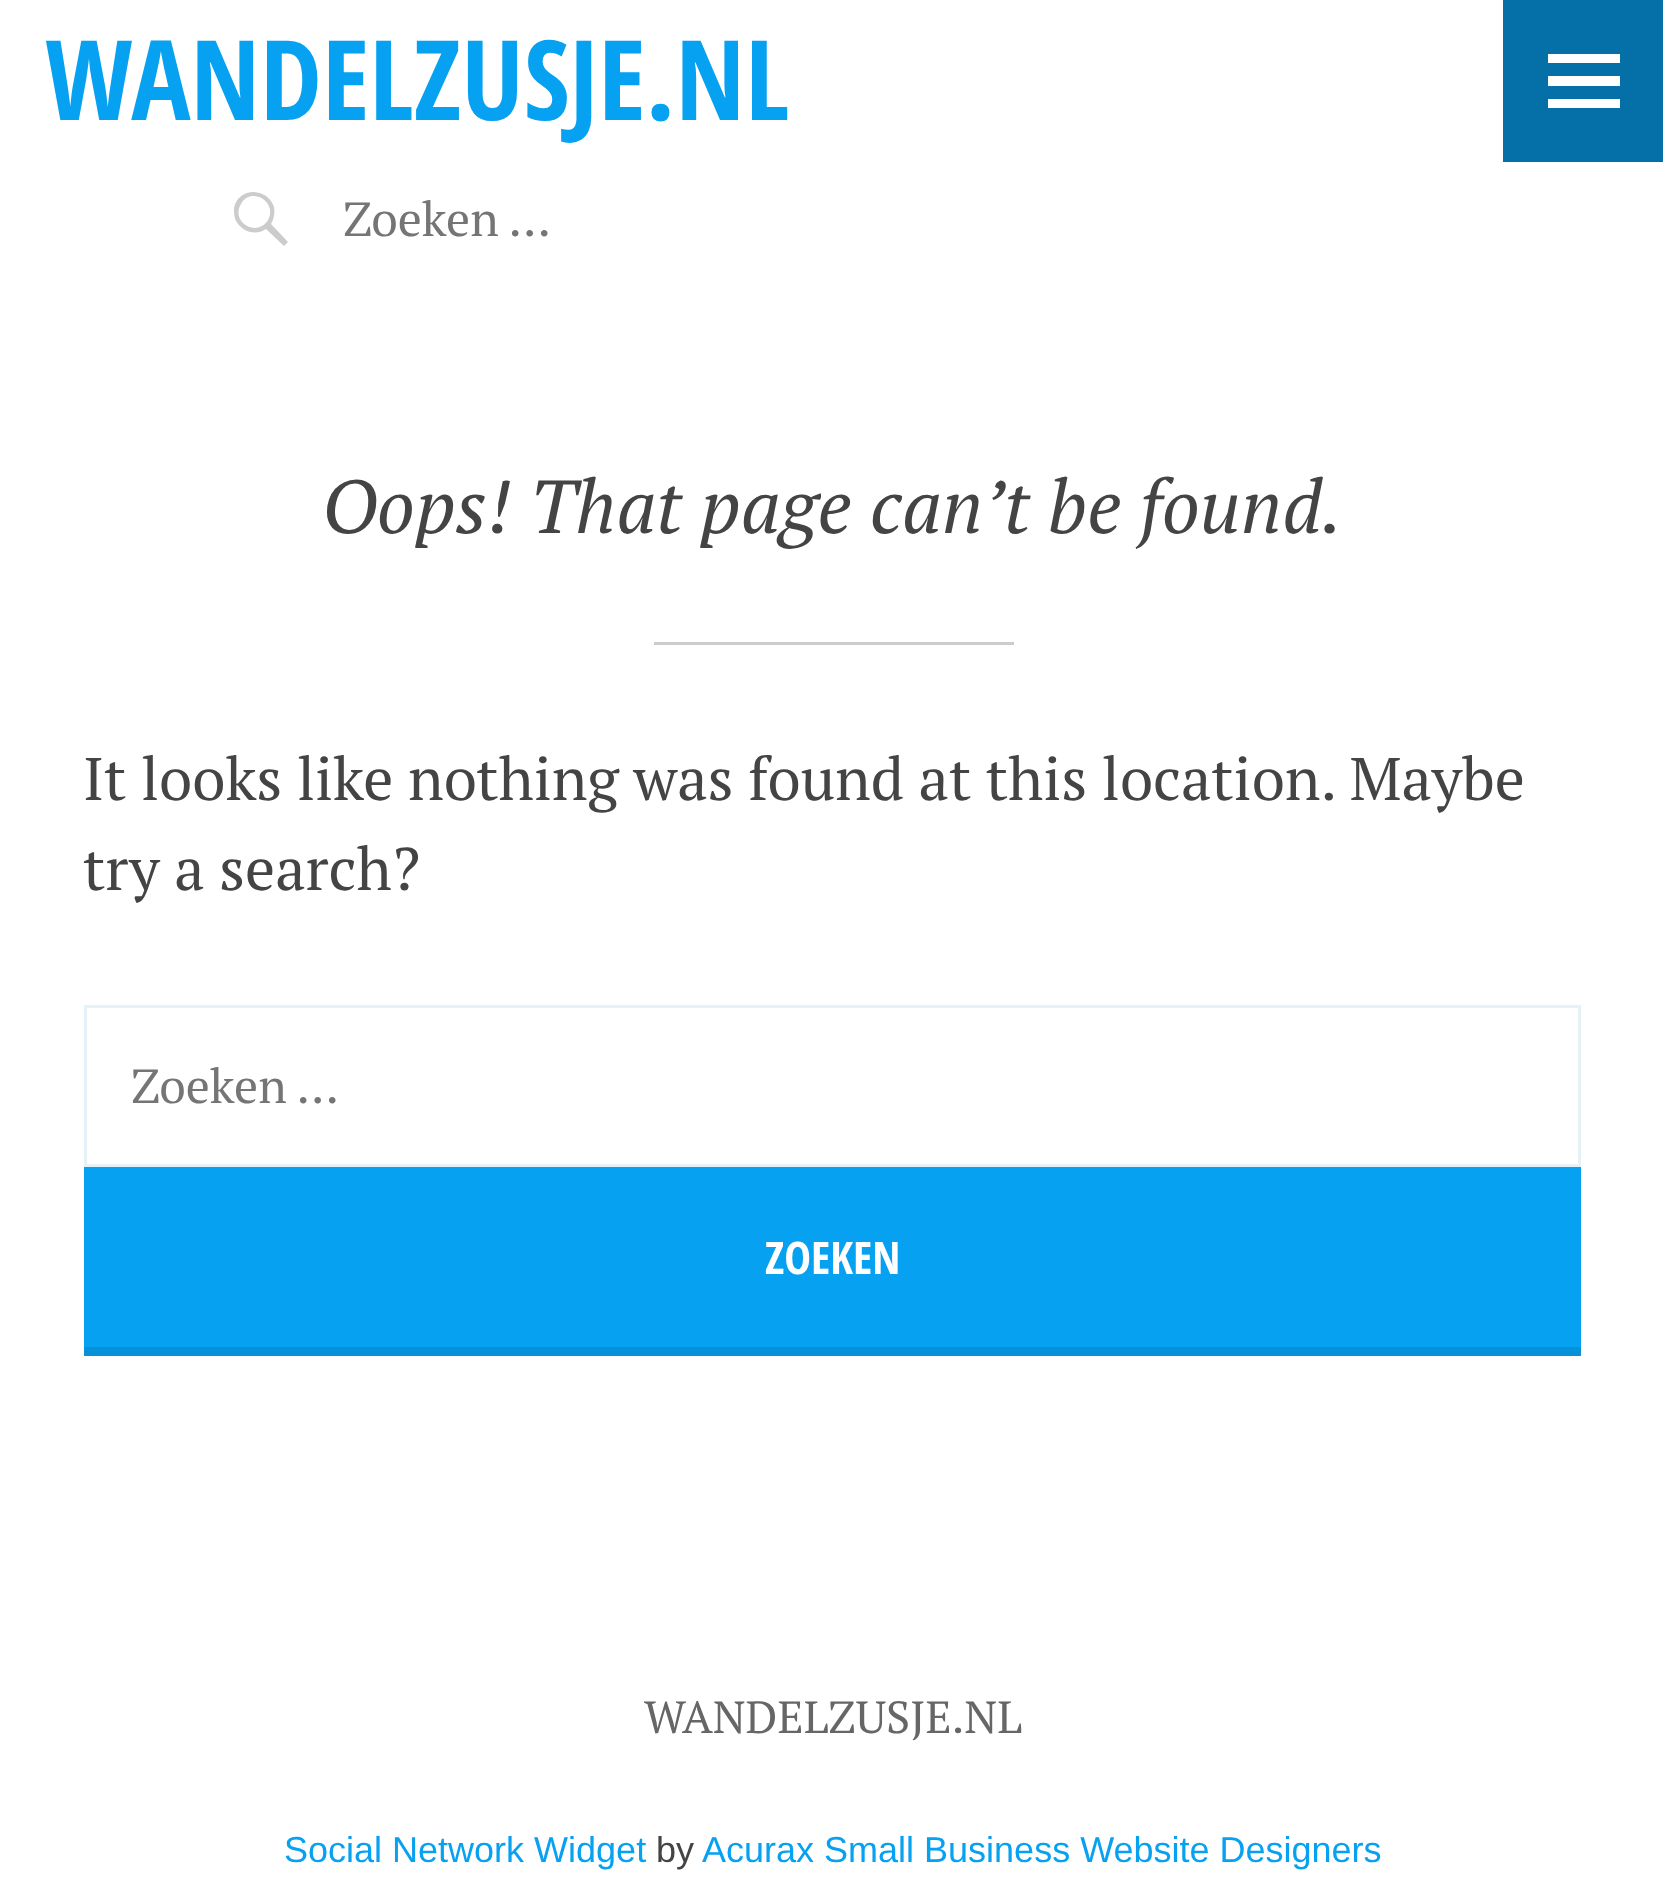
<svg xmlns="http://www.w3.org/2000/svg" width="1663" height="1903">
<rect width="100%" height="100%" fill="#fff"/>
<text x="45" y="120" style="font-family:Open Sans Condensed;font-size:111px;font-weight:bold;fill:#07a1f2">WANDELZUSJE.NL</text>
<rect x="1503" width="160" height="162" fill="#0570a8"/>
<path d="M1548 108v-9h72v9zm0-54h72v9h-72zm0 32v-10h72v10z" fill="#fff"/>
<path d="M288 242l-4 4l-18-17c-10 7-24 3-30-8c-2-4-2-8-2-13c4-21 34-21 40-1c1 6 0 12-3 17zm-47-38c-11 18 16 34 27 16c10-18-17-34-27-16z" fill="#ccc"/>
<text x="343" y="236" style="font-family:PT Serif;font-size:48px;fill:#757575">Zoeken …</text>
<text x="322" y="533" style="font-family:PT Serif;font-size:75px;font-style:italic;fill:#444">Oops! That page can’t be found.</text>
<rect x="654" y="642" width="360" height="3" fill="#ccc"/>
<text x="83" y="800" style="font-family:PT Serif;font-size:60px;fill:#444">It looks like nothing was found at this location. Maybe</text>
<text x="83" y="890" style="font-family:PT Serif;font-size:60px;fill:#444">try a search?</text>
<rect x="85.5" y="1006.5" width="1494" height="159" fill="none" stroke="#e7f2f8" stroke-width="3"/>
<text x="131" y="1103" style="font-family:PT Serif;font-size:48px;fill:#757575">Zoeken …</text>
<rect x="84" y="1167" width="1497" height="180" fill="#07a1f2"/>
<rect x="84" y="1347" width="1497" height="9" fill="#0691d9"/>
<text x="765" y="1274" style="font-family:Open Sans Condensed;font-size:45px;font-weight:bold;fill:#fff">ZOEKEN</text>
<text x="644" y="1733" style="font-family:PT Serif;font-size:45px;fill:#666">WANDELZUSJE.NL</text>
<text x="284" y="1862" style="font-family:Liberation Sans;font-size:36px;fill:#07a1f2">Social Network Widget</text>
<text x="656" y="1862" style="font-family:Liberation Sans;font-size:36px;fill:#444">by</text>
<text x="702" y="1862" style="font-family:Liberation Sans;font-size:36px;fill:#07a1f2">Acurax Small Business Website Designers</text>
</svg>
